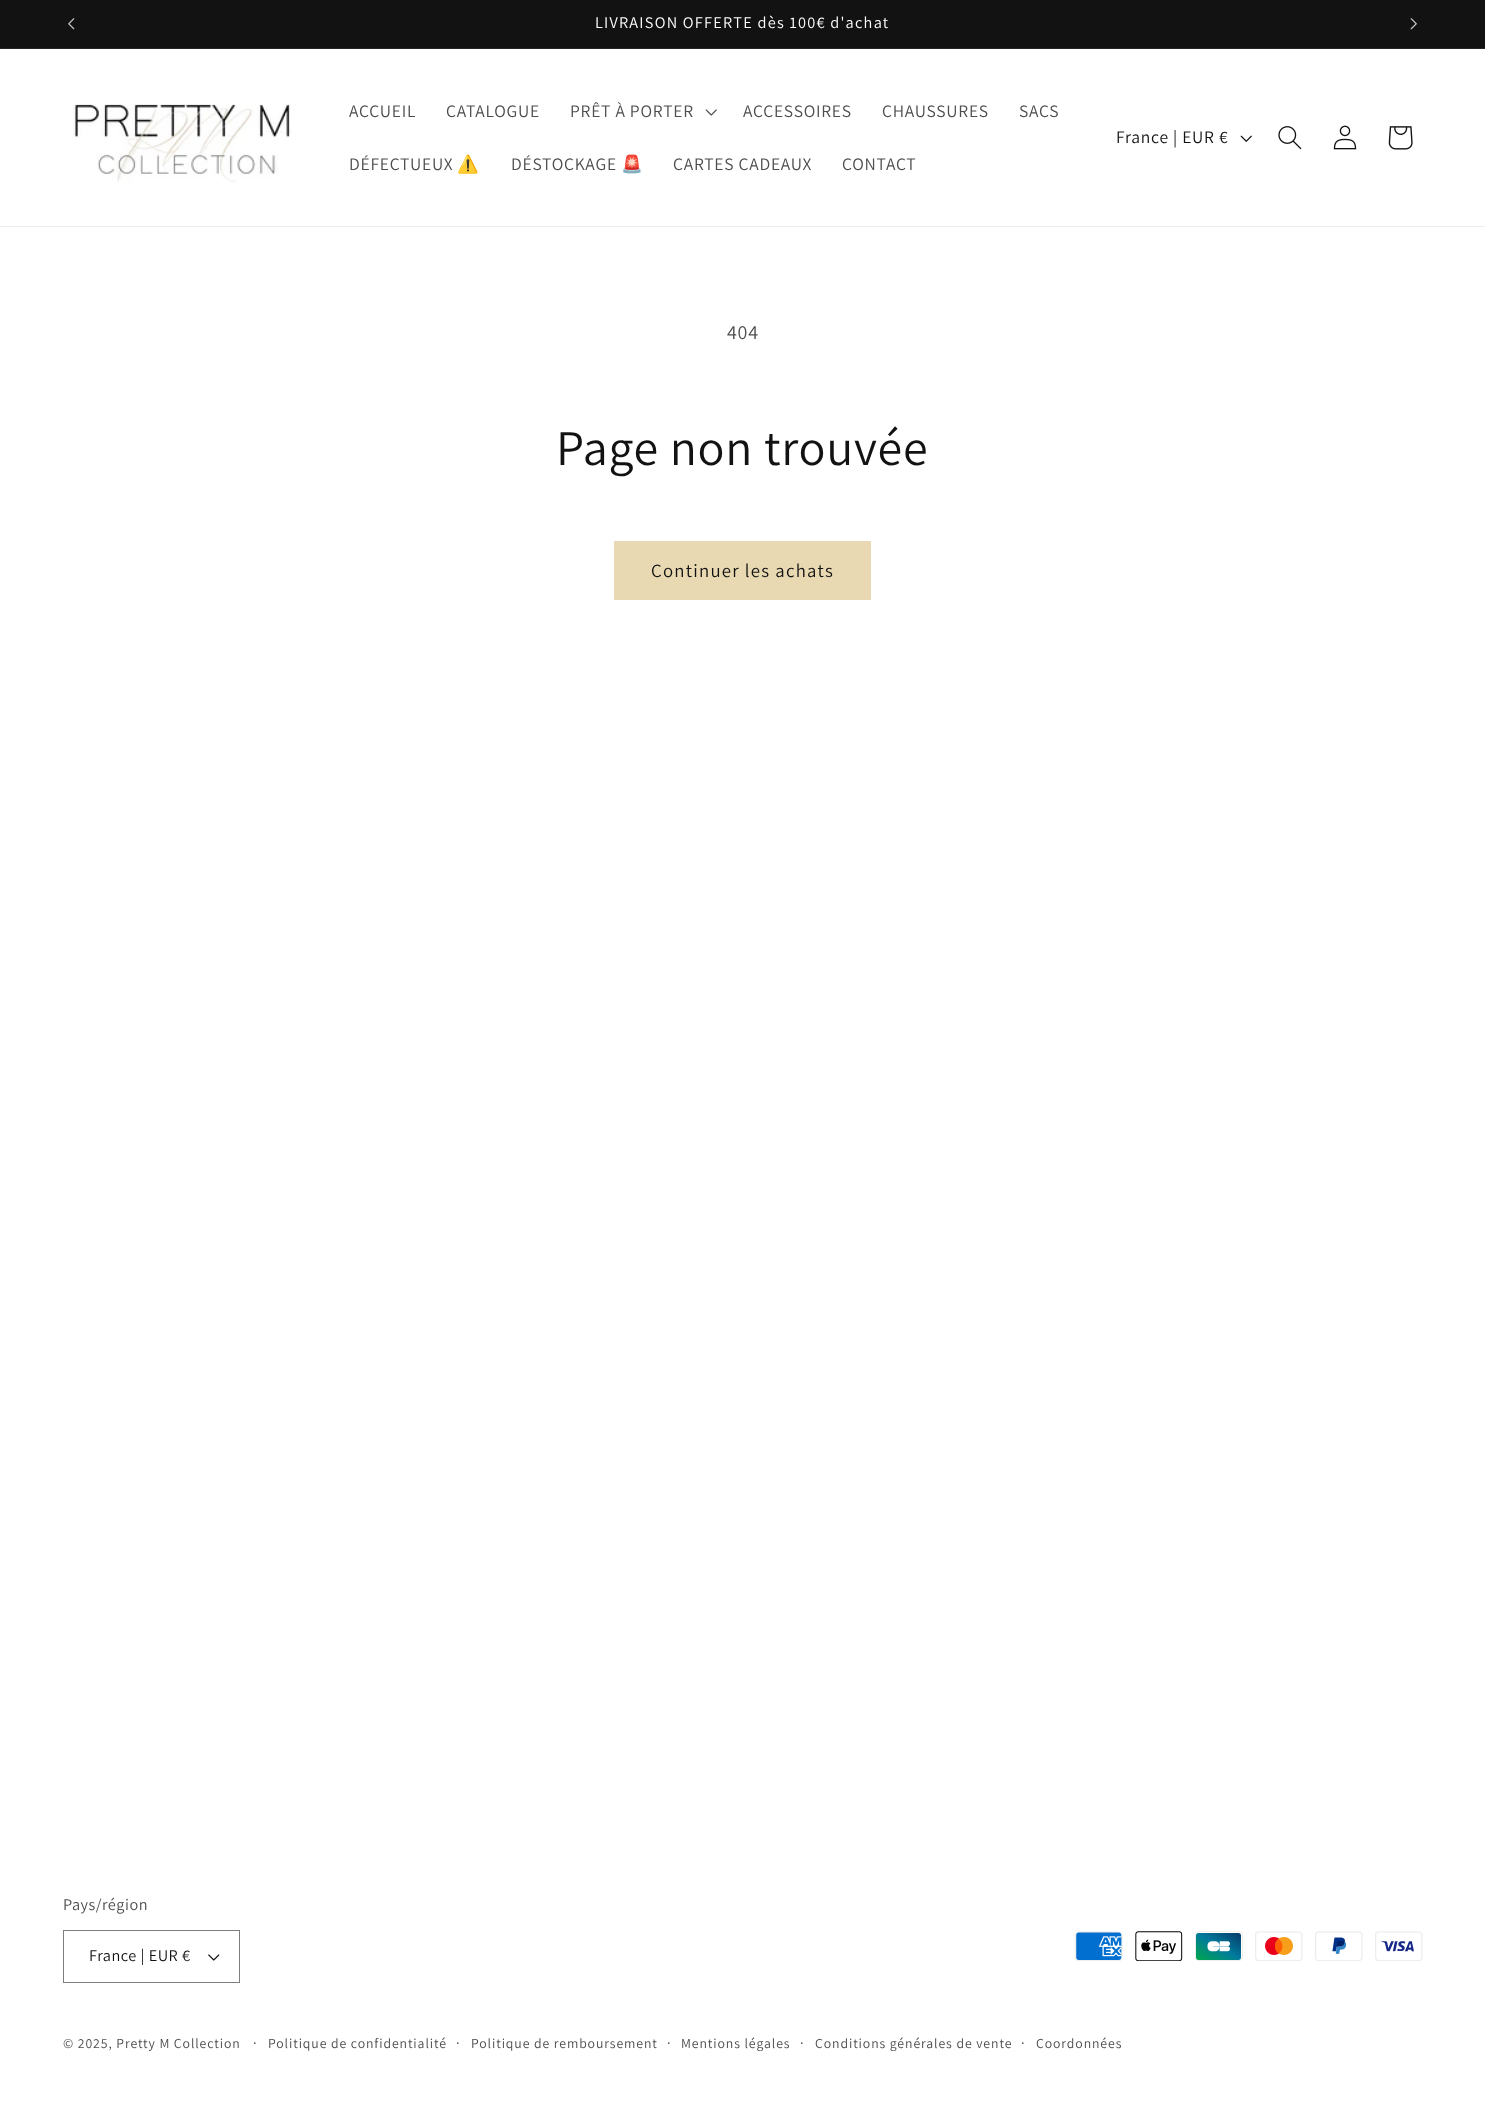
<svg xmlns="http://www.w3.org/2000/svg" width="1485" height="2101">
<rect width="100%" height="100%" fill="#fff"/>
<rect width="1485" height="48" fill="#121212"/>
<rect y="48" width="1485" height="1" fill="#252525"/>
<image x="68" y="18" width="7" height="12" href="media/1.png"/>
<text x="595" y="28" style="font-family:Assistant;font-size:16.25px;letter-spacing:1.25px;fill:#fff">LIVRAISON OFFERTE dès 100€ d'achat</text>
<image x="1410" y="18" width="7" height="12" href="media/2.png"/>
<rect y="226" width="1485" height="1" fill="#ececec"/>
<image x="73" y="104" width="218" height="79" href="media/3.png"/>
<text x="349" y="117" style="font-family:Assistant;font-size:17.5px;letter-spacing:0.75px;fill:#4d4d4d">ACCUEIL</text>
<text x="446" y="117" style="font-family:Assistant;font-size:17.5px;letter-spacing:0.75px;fill:#4d4d4d">CATALOGUE</text>
<text x="570" y="117" style="font-family:Assistant;font-size:17.5px;letter-spacing:0.75px;fill:#4d4d4d">PRÊT À PORTER</text>
<image x="705" y="109" width="12" height="7" href="media/4.png"/>
<text x="743" y="117" style="font-family:Assistant;font-size:17.5px;letter-spacing:0.75px;fill:#4d4d4d">ACCESSOIRES</text>
<text x="882" y="117" style="font-family:Assistant;font-size:17.5px;letter-spacing:0.75px;fill:#4d4d4d">CHAUSSURES</text>
<text x="1019" y="117" style="font-family:Assistant;font-size:17.5px;letter-spacing:0.75px;fill:#4d4d4d">SACS</text>
<text x="349" y="170" style="font-family:Assistant;font-size:17.5px;letter-spacing:0.75px;fill:#4d4d4d">DÉFECTUEUX</text>
<text x="457" y="170" style="font-family:Noto Color Emoji;font-size:17.5px;letter-spacing:0.75px;fill:#4d4d4d">⚠️</text>
<text x="511" y="170" style="font-family:Assistant;font-size:17.5px;letter-spacing:0.75px;fill:#4d4d4d">DÉSTOCKAGE</text>
<text x="621" y="170" style="font-family:Noto Color Emoji;font-size:17.5px;letter-spacing:0.75px;fill:#4d4d4d">🚨</text>
<text x="673" y="170" style="font-family:Assistant;font-size:17.5px;letter-spacing:0.75px;fill:#4d4d4d">CARTES CADEAUX</text>
<text x="842" y="170" style="font-family:Assistant;font-size:17.5px;letter-spacing:0.75px;fill:#4d4d4d">CONTACT</text>
<text x="1116" y="143" style="font-family:Assistant;font-size:17.5px;letter-spacing:0.75px;fill:#121212">France | EUR €</text>
<image x="1240" y="135" width="12" height="7" href="media/5.png"/>
<image x="1278" y="126" width="24" height="24" href="media/6.png"/>
<image x="1333" y="125" width="24" height="25" href="media/7.png"/>
<image x="1388" y="126" width="25" height="24" href="media/8.png"/>
<text x="727" y="339" style="font-family:Assistant;font-size:20px;letter-spacing:0.75px;fill:#4d4d4d">404</text>
<text x="556" y="465" style="font-family:Assistant;font-size:50px;letter-spacing:0.75px;fill:#121212">Page non trouvée</text>
<rect x="614" y="541" width="257" height="59" fill="#e9d9b3"/>
<text x="651" y="577" style="font-family:Assistant;font-size:18.75px;letter-spacing:1.25px;fill:#121212">Continuer les achats</text>
<text x="63" y="1910" style="font-family:Assistant;font-size:16.25px;letter-spacing:0.5px;fill:#4d4d4d">Pays/région</text>
<image x="208" y="1954" width="12" height="7" href="media/9.png"/>
<rect x="63.5" y="1930.5" width="176" height="52" fill="none" stroke="#7d7d7d"/>
<text x="89" y="1961" style="font-family:Assistant;font-size:16.25px;letter-spacing:0.5px;fill:#121212">France | EUR €</text>
<image x="1075" y="1931" width="48" height="30" href="media/10.png"/>
<image x="1135" y="1931" width="48" height="30" href="media/11.png"/>
<image x="1195" y="1931" width="48" height="30" href="media/12.png"/>
<image x="1255" y="1931" width="48" height="30" href="media/13.png"/>
<image x="1315" y="1931" width="48" height="30" href="media/14.png"/>
<image x="1375" y="1931" width="48" height="30" href="media/15.png"/>
<text x="63" y="2048" style="font-family:Assistant;font-size:13.75px;letter-spacing:0.9px;fill:#4d4d4d">© 2025, Pretty M Collection</text>
<text x="253" y="2048" style="font-family:Assistant;font-size:15px;letter-spacing:0.9px;fill:#4d4d4d">·</text>
<text x="268" y="2048" style="font-family:Assistant;font-size:13.75px;letter-spacing:0.9px;fill:#4d4d4d">Politique de confidentialité</text>
<text x="456" y="2048" style="font-family:Assistant;font-size:15px;letter-spacing:0.9px;fill:#4d4d4d">·</text>
<text x="471" y="2048" style="font-family:Assistant;font-size:13.75px;letter-spacing:0.9px;fill:#4d4d4d">Politique de remboursement</text>
<text x="667" y="2048" style="font-family:Assistant;font-size:15px;letter-spacing:0.9px;fill:#4d4d4d">·</text>
<text x="681" y="2048" style="font-family:Assistant;font-size:13.75px;letter-spacing:0.9px;fill:#4d4d4d">Mentions légales</text>
<text x="800" y="2048" style="font-family:Assistant;font-size:15px;letter-spacing:0.9px;fill:#4d4d4d">·</text>
<text x="815" y="2048" style="font-family:Assistant;font-size:13.75px;letter-spacing:0.9px;fill:#4d4d4d">Conditions générales de vente</text>
<text x="1021" y="2048" style="font-family:Assistant;font-size:15px;letter-spacing:0.9px;fill:#4d4d4d">·</text>
<text x="1036" y="2048" style="font-family:Assistant;font-size:13.75px;letter-spacing:0.9px;fill:#4d4d4d">Coordonnées</text>
</svg>
